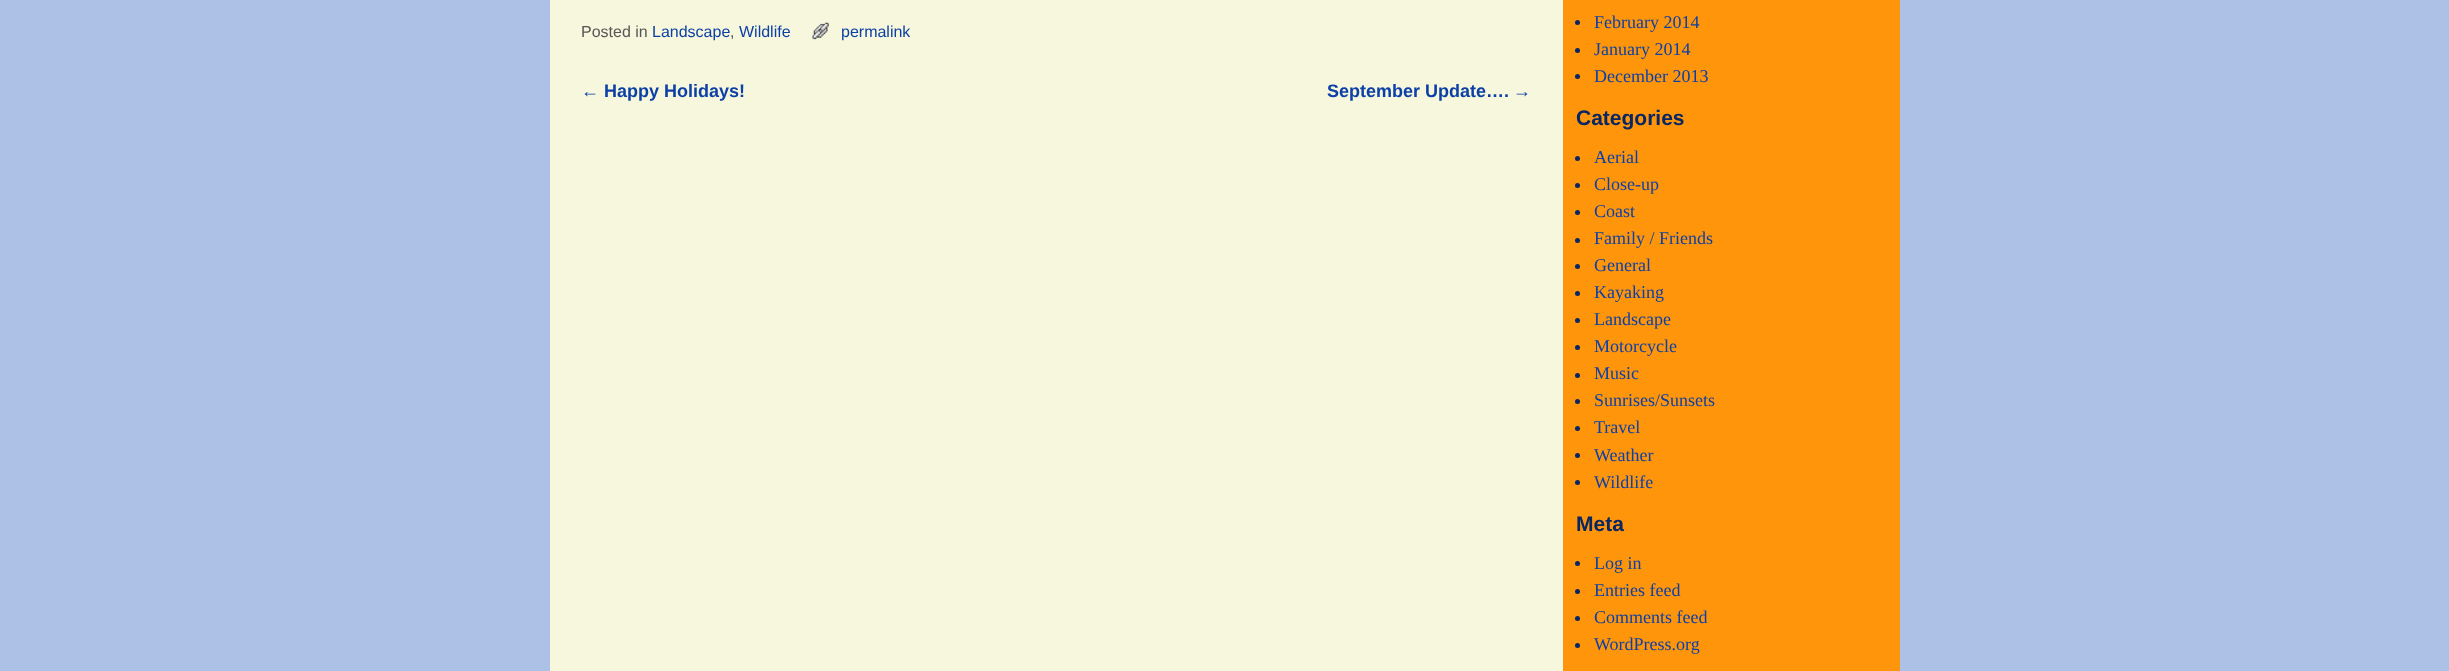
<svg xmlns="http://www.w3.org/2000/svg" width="2449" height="671">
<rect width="100%" height="100%" fill="#acc1e5"/>
<rect x="550" width="1013" height="671" fill="#f6f7dc"/>
<text x="581" y="37" style="font-family:Liberation Sans;font-size:16px;fill:#575757">Posted in</text>
<text x="652" y="37" style="font-family:Liberation Sans;font-size:16px;fill:#0d40a6">Landscape</text>
<text x="730" y="37" style="font-family:Liberation Sans;font-size:16px;fill:#575757">,</text>
<text x="739" y="37" style="font-family:Liberation Sans;font-size:16px;fill:#0d40a6">Wildlife</text>
<image x="812" y="22" width="17" height="18" href="media/1.png"/>
<text x="841" y="37" style="font-family:Liberation Sans;font-size:16px;fill:#0d40a6">permalink</text>
<text x="581" y="97" style="font-family:Liberation Sans;font-size:18px;fill:#0d40a6">←</text>
<text x="604" y="97" style="font-family:Liberation Sans;font-size:18px;font-weight:bold;fill:#0d40a6">Happy Holidays!</text>
<text x="1327" y="97" style="font-family:Liberation Sans;font-size:18px;font-weight:bold;fill:#0d40a6">September Update….</text>
<text x="1513" y="97" style="font-family:Liberation Sans;font-size:18px;fill:#0d40a6">→</text>
<rect x="1563" width="337" height="671" fill="#ff950a"/>
<circle cx="1577.5" cy="22.5" r="2.5" fill="#082663"/>
<text x="1594" y="28" style="font-family:Liberation Serif;font-size:18px;fill:#0d40a6">February 2014</text>
<circle cx="1577.5" cy="50.5" r="2.5" fill="#082663"/>
<text x="1594" y="55" style="font-family:Liberation Serif;font-size:18px;fill:#0d40a6">January 2014</text>
<circle cx="1577.5" cy="76.5" r="2.5" fill="#082663"/>
<text x="1594" y="82" style="font-family:Liberation Serif;font-size:18px;fill:#0d40a6">December 2013</text>
<text x="1576" y="125" style="font-family:Liberation Sans;font-size:21px;font-weight:bold;fill:#082663">Categories</text>
<circle cx="1577.5" cy="158.5" r="2.5" fill="#082663"/>
<text x="1594" y="163" style="font-family:Liberation Serif;font-size:18px;fill:#0d40a6">Aerial</text>
<circle cx="1577.5" cy="185.5" r="2.5" fill="#082663"/>
<text x="1594" y="190" style="font-family:Liberation Serif;font-size:18px;fill:#0d40a6">Close-up</text>
<circle cx="1577.5" cy="212.5" r="2.5" fill="#082663"/>
<text x="1594" y="217" style="font-family:Liberation Serif;font-size:18px;fill:#0d40a6">Coast</text>
<circle cx="1577.5" cy="240.5" r="2.5" fill="#082663"/>
<text x="1594" y="244" style="font-family:Liberation Serif;font-size:18px;fill:#0d40a6">Family / Friends</text>
<circle cx="1577.5" cy="266.5" r="2.5" fill="#082663"/>
<text x="1594" y="271" style="font-family:Liberation Serif;font-size:18px;fill:#0d40a6">General</text>
<circle cx="1577.5" cy="293.5" r="2.5" fill="#082663"/>
<text x="1594" y="298" style="font-family:Liberation Serif;font-size:18px;fill:#0d40a6">Kayaking</text>
<circle cx="1577.5" cy="320.5" r="2.5" fill="#082663"/>
<text x="1594" y="325" style="font-family:Liberation Serif;font-size:18px;fill:#0d40a6">Landscape</text>
<circle cx="1577.5" cy="347.5" r="2.5" fill="#082663"/>
<text x="1594" y="352" style="font-family:Liberation Serif;font-size:18px;fill:#0d40a6">Motorcycle</text>
<circle cx="1577.5" cy="375.5" r="2.5" fill="#082663"/>
<text x="1594" y="379" style="font-family:Liberation Serif;font-size:18px;fill:#0d40a6">Music</text>
<circle cx="1577.5" cy="401.5" r="2.5" fill="#082663"/>
<text x="1594" y="406" style="font-family:Liberation Serif;font-size:18px;fill:#0d40a6">Sunrises/Sunsets</text>
<circle cx="1577.5" cy="428.5" r="2.5" fill="#082663"/>
<text x="1594" y="433" style="font-family:Liberation Serif;font-size:18px;fill:#0d40a6">Travel</text>
<circle cx="1577.5" cy="455.5" r="2.5" fill="#082663"/>
<text x="1594" y="461" style="font-family:Liberation Serif;font-size:18px;fill:#0d40a6">Weather</text>
<circle cx="1577.5" cy="482.5" r="2.5" fill="#082663"/>
<text x="1594" y="488" style="font-family:Liberation Serif;font-size:18px;fill:#0d40a6">Wildlife</text>
<text x="1576" y="531" style="font-family:Liberation Sans;font-size:21px;font-weight:bold;fill:#082663">Meta</text>
<circle cx="1577.5" cy="563.5" r="2.5" fill="#082663"/>
<text x="1594" y="569" style="font-family:Liberation Serif;font-size:18px;fill:#0d40a6">Log in</text>
<circle cx="1577.5" cy="591.5" r="2.5" fill="#082663"/>
<text x="1594" y="596" style="font-family:Liberation Serif;font-size:18px;fill:#0d40a6">Entries feed</text>
<circle cx="1577.5" cy="618.5" r="2.5" fill="#082663"/>
<text x="1594" y="623" style="font-family:Liberation Serif;font-size:18px;fill:#0d40a6">Comments feed</text>
<circle cx="1577.5" cy="645.5" r="2.5" fill="#082663"/>
<text x="1594" y="650" style="font-family:Liberation Serif;font-size:18px;fill:#0d40a6">WordPress.org</text>
</svg>
